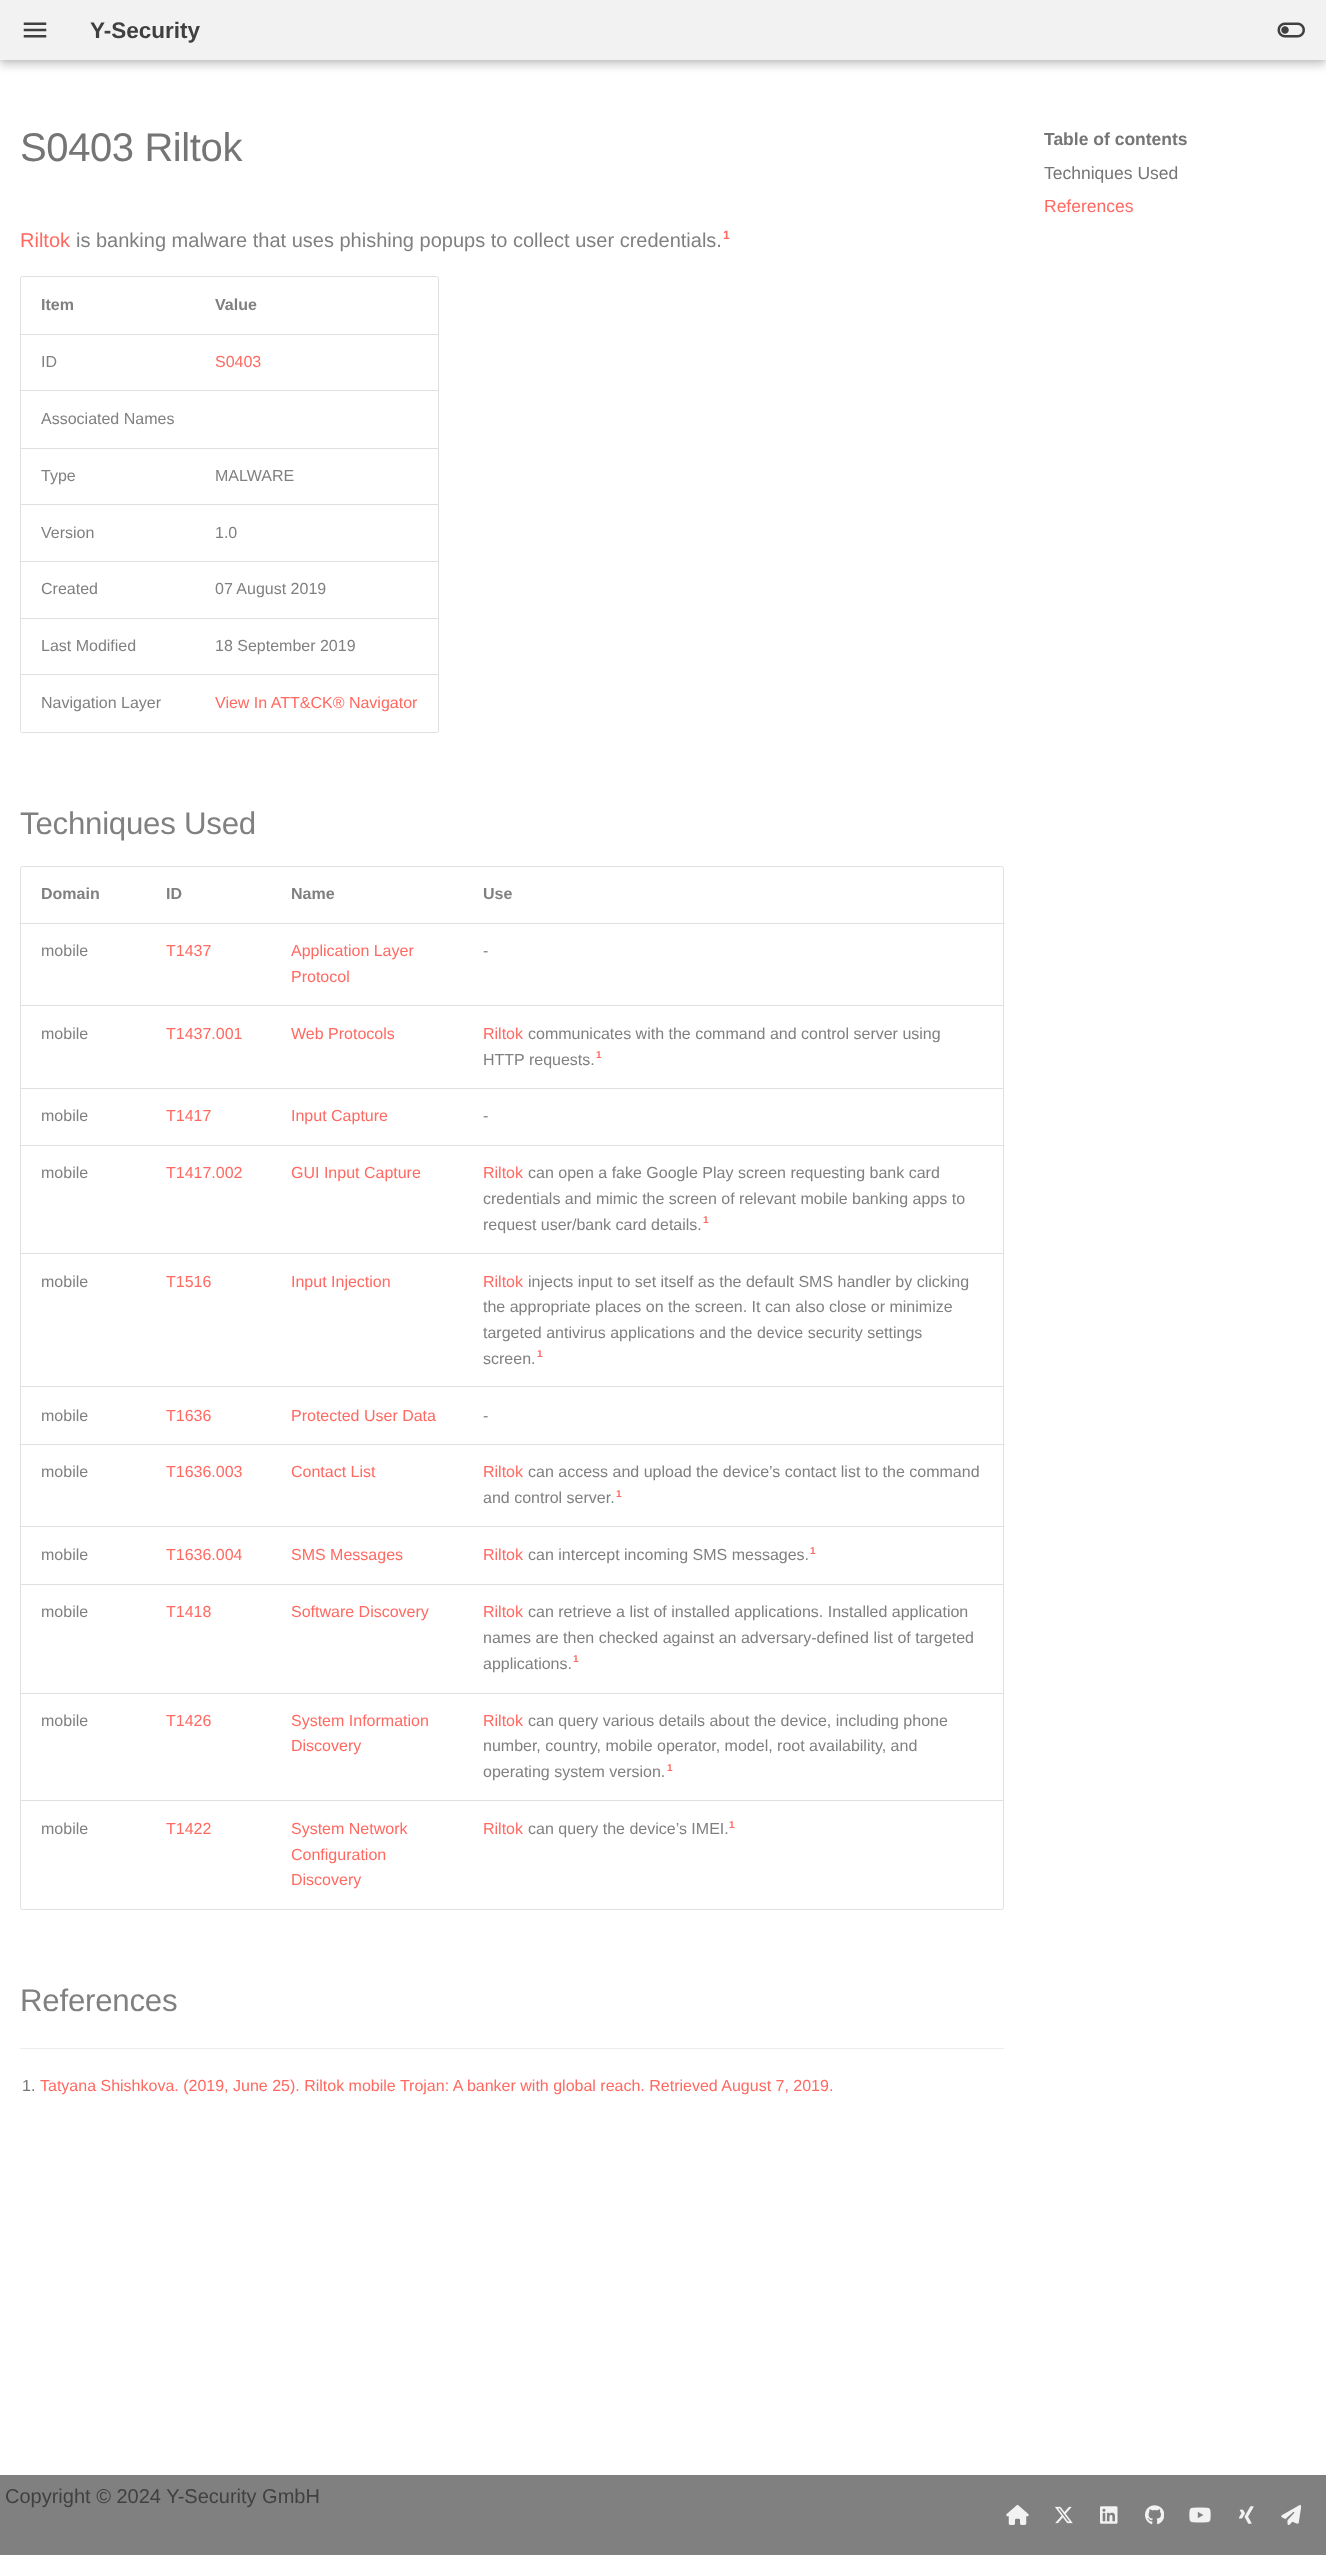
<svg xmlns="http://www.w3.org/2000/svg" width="1326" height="2555">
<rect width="100%" height="100%" fill="#fff"/>
<rect y="5" width="1326" height="60" fill="#00000033" filter="blur(5px)"/>
<rect width="1326" height="60" fill="#0000001a" filter="blur(2.5px)"/>
<rect width="1326" height="60" fill="#f2f2f2"/>
<image x="23" y="22" width="24" height="16" href="media/1.png"/>
<text x="90" y="38" style="font-family:Liberation Sans;font-size:22.5px;font-weight:bold;fill:#404040">Y-Security</text>
<image x="1277" y="22" width="28" height="16" href="media/2.png"/>
<text x="20" y="161" style="font-family:Liberation Sans;font-size:40px;letter-spacing:-0.4px;fill:#757575">S0403 Riltok</text>
<text x="20" y="247" style="font-family:Liberation Sans;font-size:20px;fill:#ff6961">Riltok</text>
<text x="76" y="247" style="font-family:Liberation Sans;font-size:20px;fill:#808080">is banking malware that uses phishing popups to collect user credentials.</text>
<text x="723" y="239" style="font-family:Liberation Sans;font-size:12px;font-weight:bold;fill:#ff6961">1</text>
<rect x="20.5" y="276.5" width="418" height="456" rx="2" fill="none" stroke="#e0e0e0"/>
<text x="41" y="310" style="font-family:Liberation Sans;font-size:16px;font-weight:bold;fill:#808080">Item</text>
<text x="215" y="310" style="font-family:Liberation Sans;font-size:16px;font-weight:bold;fill:#808080">Value</text>
<rect x="21" y="334" width="417" height="1" fill="#e0e0e0"/>
<text x="41" y="367" style="font-family:Liberation Sans;font-size:16px;fill:#808080">ID</text>
<text x="215" y="367" style="font-family:Liberation Sans;font-size:16px;fill:#ff6961">S0403</text>
<rect x="21" y="390" width="417" height="1" fill="#e0e0e0"/>
<text x="41" y="424" style="font-family:Liberation Sans;font-size:16px;fill:#808080">Associated Names</text>
<rect x="21" y="448" width="417" height="1" fill="#e0e0e0"/>
<text x="41" y="481" style="font-family:Liberation Sans;font-size:16px;fill:#808080">Type</text>
<text x="215" y="481" style="font-family:Liberation Sans;font-size:16px;fill:#808080">MALWARE</text>
<rect x="21" y="504" width="417" height="1" fill="#e0e0e0"/>
<text x="41" y="538" style="font-family:Liberation Sans;font-size:16px;fill:#808080">Version</text>
<text x="215" y="538" style="font-family:Liberation Sans;font-size:16px;fill:#808080">1.0</text>
<rect x="21" y="561" width="417" height="1" fill="#e0e0e0"/>
<text x="41" y="594" style="font-family:Liberation Sans;font-size:16px;fill:#808080">Created</text>
<text x="215" y="594" style="font-family:Liberation Sans;font-size:16px;fill:#808080">07 August 2019</text>
<rect x="21" y="618" width="417" height="1" fill="#e0e0e0"/>
<text x="41" y="651" style="font-family:Liberation Sans;font-size:16px;fill:#808080">Last Modified</text>
<text x="215" y="651" style="font-family:Liberation Sans;font-size:16px;fill:#808080">18 September 2019</text>
<rect x="21" y="674" width="417" height="1" fill="#e0e0e0"/>
<text x="41" y="708" style="font-family:Liberation Sans;font-size:16px;fill:#808080">Navigation Layer</text>
<text x="215" y="708" style="font-family:Liberation Sans;font-size:16px;fill:#ff6961">View In ATT&amp;CK® Navigator</text>
<text x="20" y="834" style="font-family:Liberation Sans;font-size:31.25px;letter-spacing:-0.25px;fill:#808080">Techniques Used</text>
<rect x="20.5" y="866.5" width="983" height="1043" rx="2" fill="none" stroke="#e0e0e0"/>
<text x="41" y="899" style="font-family:Liberation Sans;font-size:16px;font-weight:bold;fill:#808080">Domain</text>
<text x="166" y="899" style="font-family:Liberation Sans;font-size:16px;font-weight:bold;fill:#808080">ID</text>
<text x="291" y="899" style="font-family:Liberation Sans;font-size:16px;font-weight:bold;fill:#808080">Name</text>
<text x="483" y="899" style="font-family:Liberation Sans;font-size:16px;font-weight:bold;fill:#808080">Use</text>
<rect x="21" y="923" width="982" height="1" fill="#e0e0e0"/>
<text x="41" y="956" style="font-family:Liberation Sans;font-size:16px;fill:#808080">mobile</text>
<text x="166" y="956" style="font-family:Liberation Sans;font-size:16px;fill:#ff6961">T1437</text>
<text x="291" y="956" style="font-family:Liberation Sans;font-size:16px;fill:#ff6961">Application Layer</text>
<text x="291" y="982" style="font-family:Liberation Sans;font-size:16px;fill:#ff6961">Protocol</text>
<text x="483" y="956" style="font-family:Liberation Sans;font-size:16px;fill:#808080">-</text>
<rect x="21" y="1005" width="982" height="1" fill="#e0e0e0"/>
<text x="41" y="1039" style="font-family:Liberation Sans;font-size:16px;fill:#808080">mobile</text>
<text x="166" y="1039" style="font-family:Liberation Sans;font-size:16px;fill:#ff6961">T1437.001</text>
<text x="291" y="1039" style="font-family:Liberation Sans;font-size:16px;fill:#ff6961">Web Protocols</text>
<text x="483" y="1039" style="font-family:Liberation Sans;font-size:16px;fill:#ff6961">Riltok</text>
<text x="528" y="1039" style="font-family:Liberation Sans;font-size:16px;fill:#808080">communicates with the command and control server using</text>
<text x="483" y="1065" style="font-family:Liberation Sans;font-size:16px;fill:#808080">HTTP requests.</text>
<text x="596" y="1058" style="font-family:Liberation Sans;font-size:10px;font-weight:bold;fill:#ff6961">1</text>
<rect x="21" y="1088" width="982" height="1" fill="#e0e0e0"/>
<text x="41" y="1121" style="font-family:Liberation Sans;font-size:16px;fill:#808080">mobile</text>
<text x="166" y="1121" style="font-family:Liberation Sans;font-size:16px;fill:#ff6961">T1417</text>
<text x="291" y="1121" style="font-family:Liberation Sans;font-size:16px;fill:#ff6961">Input Capture</text>
<text x="483" y="1121" style="font-family:Liberation Sans;font-size:16px;fill:#808080">-</text>
<rect x="21" y="1145" width="982" height="1" fill="#e0e0e0"/>
<text x="41" y="1178" style="font-family:Liberation Sans;font-size:16px;fill:#808080">mobile</text>
<text x="166" y="1178" style="font-family:Liberation Sans;font-size:16px;fill:#ff6961">T1417.002</text>
<text x="291" y="1178" style="font-family:Liberation Sans;font-size:16px;fill:#ff6961">GUI Input Capture</text>
<text x="483" y="1178" style="font-family:Liberation Sans;font-size:16px;fill:#ff6961">Riltok</text>
<text x="528" y="1178" style="font-family:Liberation Sans;font-size:16px;fill:#808080">can open a fake Google Play screen requesting bank card</text>
<text x="483" y="1204" style="font-family:Liberation Sans;font-size:16px;fill:#808080">credentials and mimic the screen of relevant mobile banking apps to</text>
<text x="483" y="1230" style="font-family:Liberation Sans;font-size:16px;fill:#808080">request user/bank card details.</text>
<text x="703" y="1223" style="font-family:Liberation Sans;font-size:10px;font-weight:bold;fill:#ff6961">1</text>
<rect x="21" y="1253" width="982" height="1" fill="#e0e0e0"/>
<text x="41" y="1287" style="font-family:Liberation Sans;font-size:16px;fill:#808080">mobile</text>
<text x="166" y="1287" style="font-family:Liberation Sans;font-size:16px;fill:#ff6961">T1516</text>
<text x="291" y="1287" style="font-family:Liberation Sans;font-size:16px;fill:#ff6961">Input Injection</text>
<text x="483" y="1287" style="font-family:Liberation Sans;font-size:16px;fill:#ff6961">Riltok</text>
<text x="528" y="1287" style="font-family:Liberation Sans;font-size:16px;fill:#808080">injects input to set itself as the default SMS handler by clicking</text>
<text x="483" y="1312" style="font-family:Liberation Sans;font-size:16px;fill:#808080">the appropriate places on the screen. It can also close or minimize</text>
<text x="483" y="1338" style="font-family:Liberation Sans;font-size:16px;fill:#808080">targeted antivirus applications and the device security settings</text>
<text x="537" y="1357" style="font-family:Liberation Sans;font-size:10px;font-weight:bold;fill:#ff6961">1</text>
<text x="483" y="1364" style="font-family:Liberation Sans;font-size:16px;fill:#808080">screen.</text>
<rect x="21" y="1386" width="982" height="1" fill="#e0e0e0"/>
<text x="41" y="1421" style="font-family:Liberation Sans;font-size:16px;fill:#808080">mobile</text>
<text x="166" y="1421" style="font-family:Liberation Sans;font-size:16px;fill:#ff6961">T1636</text>
<text x="291" y="1421" style="font-family:Liberation Sans;font-size:16px;fill:#ff6961">Protected User Data</text>
<text x="483" y="1421" style="font-family:Liberation Sans;font-size:16px;fill:#808080">-</text>
<rect x="21" y="1444" width="982" height="1" fill="#e0e0e0"/>
<text x="41" y="1477" style="font-family:Liberation Sans;font-size:16px;fill:#808080">mobile</text>
<text x="166" y="1477" style="font-family:Liberation Sans;font-size:16px;fill:#ff6961">T1636.003</text>
<text x="291" y="1477" style="font-family:Liberation Sans;font-size:16px;fill:#ff6961">Contact List</text>
<text x="483" y="1477" style="font-family:Liberation Sans;font-size:16px;fill:#ff6961">Riltok</text>
<text x="528" y="1477" style="font-family:Liberation Sans;font-size:16px;fill:#808080">can access and upload the device’s contact list to the command</text>
<text x="483" y="1503" style="font-family:Liberation Sans;font-size:16px;fill:#808080">and control server.</text>
<text x="616" y="1497" style="font-family:Liberation Sans;font-size:10px;font-weight:bold;fill:#ff6961">1</text>
<rect x="21" y="1526" width="982" height="1" fill="#e0e0e0"/>
<text x="41" y="1560" style="font-family:Liberation Sans;font-size:16px;fill:#808080">mobile</text>
<text x="166" y="1560" style="font-family:Liberation Sans;font-size:16px;fill:#ff6961">T1636.004</text>
<text x="291" y="1560" style="font-family:Liberation Sans;font-size:16px;fill:#ff6961">SMS Messages</text>
<text x="483" y="1560" style="font-family:Liberation Sans;font-size:16px;fill:#ff6961">Riltok</text>
<text x="528" y="1560" style="font-family:Liberation Sans;font-size:16px;fill:#808080">can intercept incoming SMS messages.</text>
<text x="810" y="1554" style="font-family:Liberation Sans;font-size:10px;font-weight:bold;fill:#ff6961">1</text>
<rect x="21" y="1584" width="982" height="1" fill="#e0e0e0"/>
<text x="41" y="1617" style="font-family:Liberation Sans;font-size:16px;fill:#808080">mobile</text>
<text x="166" y="1617" style="font-family:Liberation Sans;font-size:16px;fill:#ff6961">T1418</text>
<text x="291" y="1617" style="font-family:Liberation Sans;font-size:16px;fill:#ff6961">Software Discovery</text>
<text x="483" y="1617" style="font-family:Liberation Sans;font-size:16px;fill:#ff6961">Riltok</text>
<text x="528" y="1617" style="font-family:Liberation Sans;font-size:16px;fill:#808080">can retrieve a list of installed applications. Installed application</text>
<text x="483" y="1643" style="font-family:Liberation Sans;font-size:16px;fill:#808080">names are then checked against an adversary-defined list of targeted</text>
<text x="483" y="1669" style="font-family:Liberation Sans;font-size:16px;fill:#808080">applications.</text>
<text x="573" y="1662" style="font-family:Liberation Sans;font-size:10px;font-weight:bold;fill:#ff6961">1</text>
<rect x="21" y="1693" width="982" height="1" fill="#e0e0e0"/>
<text x="41" y="1726" style="font-family:Liberation Sans;font-size:16px;fill:#808080">mobile</text>
<text x="166" y="1726" style="font-family:Liberation Sans;font-size:16px;fill:#ff6961">T1426</text>
<text x="291" y="1726" style="font-family:Liberation Sans;font-size:16px;fill:#ff6961">System Information</text>
<text x="291" y="1751" style="font-family:Liberation Sans;font-size:16px;fill:#ff6961">Discovery</text>
<text x="483" y="1726" style="font-family:Liberation Sans;font-size:16px;fill:#ff6961">Riltok</text>
<text x="528" y="1726" style="font-family:Liberation Sans;font-size:16px;fill:#808080">can query various details about the device, including phone</text>
<text x="483" y="1751" style="font-family:Liberation Sans;font-size:16px;fill:#808080">number, country, mobile operator, model, root availability, and</text>
<text x="483" y="1777" style="font-family:Liberation Sans;font-size:16px;fill:#808080">operating system version.</text>
<text x="667" y="1771" style="font-family:Liberation Sans;font-size:10px;font-weight:bold;fill:#ff6961">1</text>
<rect x="21" y="1800" width="982" height="1" fill="#e0e0e0"/>
<text x="41" y="1834" style="font-family:Liberation Sans;font-size:16px;fill:#808080">mobile</text>
<text x="166" y="1834" style="font-family:Liberation Sans;font-size:16px;fill:#ff6961">T1422</text>
<text x="291" y="1834" style="font-family:Liberation Sans;font-size:16px;fill:#ff6961">System Network</text>
<text x="291" y="1860" style="font-family:Liberation Sans;font-size:16px;fill:#ff6961">Configuration</text>
<text x="291" y="1885" style="font-family:Liberation Sans;font-size:16px;fill:#ff6961">Discovery</text>
<text x="483" y="1834" style="font-family:Liberation Sans;font-size:16px;fill:#ff6961">Riltok</text>
<text x="528" y="1834" style="font-family:Liberation Sans;font-size:16px;fill:#808080">can query the device’s IMEI.</text>
<text x="729" y="1828" style="font-family:Liberation Sans;font-size:10px;font-weight:bold;fill:#ff6961">1</text>
<text x="20" y="2011" style="font-family:Liberation Sans;font-size:31.25px;letter-spacing:-0.25px;fill:#808080">References</text>
<rect x="20" y="2048" width="984" height="1" fill="#ededed"/>
<text x="22" y="2091" style="font-family:Liberation Sans;font-size:16px;fill:#757575">1.</text>
<text x="40" y="2091" style="font-family:Liberation Sans;font-size:16px;fill:#ff6961">Tatyana Shishkova. (2019, June 25). Riltok mobile Trojan: A banker with global reach. Retrieved August 7, 2019.</text>
<text x="1044" y="145" style="font-family:Liberation Sans;font-size:17.5px;font-weight:bold;fill:#757575">Table of contents</text>
<text x="1044" y="179" style="font-family:Liberation Sans;font-size:17.5px;fill:#757575">Techniques Used</text>
<text x="1044" y="212" style="font-family:Liberation Sans;font-size:17.5px;fill:#ff6961">References</text>
<rect y="2475" width="1326" height="80" fill="#808080"/>
<text x="5" y="2503" style="font-family:Liberation Sans;font-size:20px;fill:#404040">Copyright © 2024 Y-Security GmbH</text>
<image x="1006" y="2505" width="23" height="20" href="media/3.png"/>
<image x="1055" y="2506" width="18" height="18" href="media/4.png"/>
<image x="1100" y="2506" width="18" height="18" href="media/5.png"/>
<image x="1145" y="2505" width="19" height="20" href="media/6.png"/>
<image x="1189" y="2507" width="22" height="16" href="media/7.png"/>
<image x="1239" y="2506" width="15" height="18" href="media/8.png"/>
<image x="1281" y="2505" width="20" height="20" href="media/9.png"/>
</svg>
